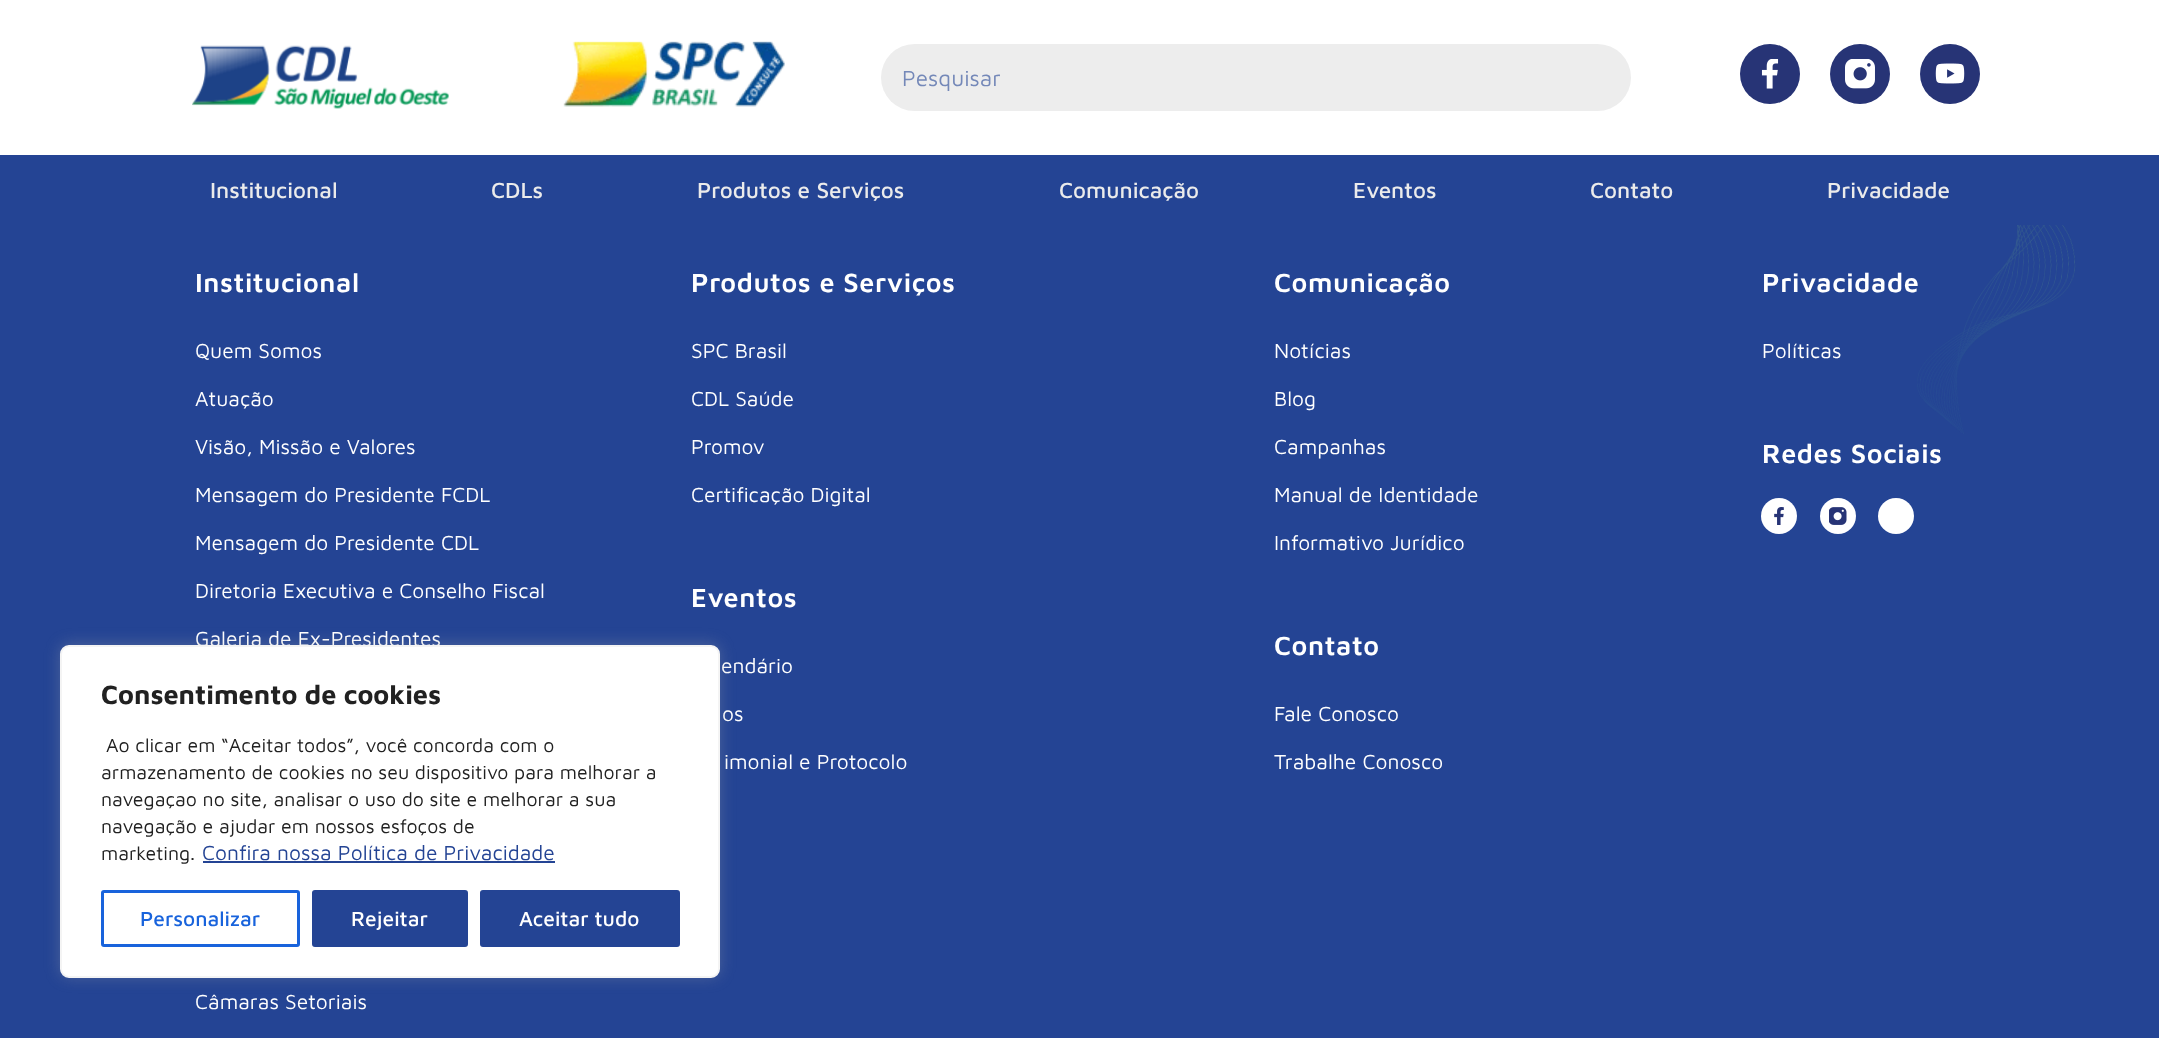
<svg xmlns="http://www.w3.org/2000/svg" width="2159" height="1038">
<rect width="100%" height="100%" fill="#244494"/>
<rect width="2159" height="155" fill="#fff"/>
<image x="192" y="45" width="257" height="64" href="media/1.png"/>
<image x="563" y="41" width="222" height="66" href="media/2.png"/>
<rect x="881" y="44" width="750" height="67" rx="33.5" fill="#ededed"/>
<text x="902" y="86" style="font-family:Maven Pro;font-size:22.5px;fill:#7488b8">Pesquisar</text>
<circle cx="1770" cy="74" r="30" fill="#273476"/>
<image x="1761" y="59" width="18" height="30" href="media/3.png"/>
<circle cx="1860" cy="74" r="30" fill="#273476"/>
<image x="1845" y="59" width="30" height="30" href="media/4.png"/>
<circle cx="1950" cy="74" r="30" fill="#273476"/>
<image x="1935" y="63" width="30" height="21" href="media/5.png"/>
<text x="210" y="198" style="font-family:Maven Pro;font-size:22.5px;font-weight:500;fill:#ebebeb">Institucional</text>
<text x="491" y="198" style="font-family:Maven Pro;font-size:22.5px;font-weight:500;fill:#ebebeb">CDLs</text>
<text x="697" y="198" style="font-family:Maven Pro;font-size:22.5px;font-weight:500;fill:#ebebeb">Produtos e Serviços</text>
<text x="1059" y="198" style="font-family:Maven Pro;font-size:22.5px;font-weight:500;fill:#ebebeb">Comunicação</text>
<text x="1353" y="198" style="font-family:Maven Pro;font-size:22.5px;font-weight:500;fill:#ebebeb">Eventos</text>
<text x="1590" y="198" style="font-family:Maven Pro;font-size:22.5px;font-weight:500;fill:#ebebeb">Contato</text>
<text x="1827" y="198" style="font-family:Maven Pro;font-size:22.5px;font-weight:500;fill:#ebebeb">Privacidade</text>
<text x="195" y="292" style="font-family:Maven Pro;font-size:27px;font-weight:600;letter-spacing:0.6px;fill:#fff">Institucional</text>
<text x="195" y="358" style="font-family:Maven Pro;font-size:21px;fill:#fff">Quem Somos</text>
<text x="195" y="406" style="font-family:Maven Pro;font-size:21px;fill:#fff">Atuação</text>
<text x="195" y="454" style="font-family:Maven Pro;font-size:21px;fill:#fff">Visão, Missão e Valores</text>
<text x="195" y="502" style="font-family:Maven Pro;font-size:21px;fill:#fff">Mensagem do Presidente FCDL</text>
<text x="195" y="550" style="font-family:Maven Pro;font-size:21px;fill:#fff">Mensagem do Presidente CDL</text>
<text x="195" y="598" style="font-family:Maven Pro;font-size:21px;fill:#fff">Diretoria Executiva e Conselho Fiscal</text>
<text x="195" y="646" style="font-family:Maven Pro;font-size:21px;fill:#fff">Galeria de Ex-Presidentes</text>
<text x="195" y="1009" style="font-family:Maven Pro;font-size:21px;fill:#fff">Câmaras Setoriais</text>
<text x="691" y="292" style="font-family:Maven Pro;font-size:27px;font-weight:600;letter-spacing:0.6px;fill:#fff">Produtos e Serviços</text>
<text x="691" y="358" style="font-family:Maven Pro;font-size:21px;fill:#fff">SPC Brasil</text>
<text x="691" y="406" style="font-family:Maven Pro;font-size:21px;fill:#fff">CDL Saúde</text>
<text x="691" y="454" style="font-family:Maven Pro;font-size:21px;fill:#fff">Promov</text>
<text x="691" y="502" style="font-family:Maven Pro;font-size:21px;fill:#fff">Certificação Digital</text>
<text x="691" y="607" style="font-family:Maven Pro;font-size:27px;font-weight:600;letter-spacing:0.6px;fill:#fff">Eventos</text>
<text x="721" y="673" style="font-family:Maven Pro;font-size:21px;fill:#fff">endário</text>
<text x="722" y="721" style="font-family:Maven Pro;font-size:21px;fill:#fff">os</text>
<text x="724" y="769" style="font-family:Maven Pro;font-size:21px;fill:#fff">imonial e Protocolo</text>
<text x="1274" y="292" style="font-family:Maven Pro;font-size:27px;font-weight:600;letter-spacing:0.6px;fill:#fff">Comunicação</text>
<text x="1274" y="358" style="font-family:Maven Pro;font-size:21px;fill:#fff">Notícias</text>
<text x="1274" y="406" style="font-family:Maven Pro;font-size:21px;fill:#fff">Blog</text>
<text x="1274" y="454" style="font-family:Maven Pro;font-size:21px;fill:#fff">Campanhas</text>
<text x="1274" y="502" style="font-family:Maven Pro;font-size:21px;fill:#fff">Manual de Identidade</text>
<text x="1274" y="550" style="font-family:Maven Pro;font-size:21px;fill:#fff">Informativo Jurídico</text>
<text x="1274" y="655" style="font-family:Maven Pro;font-size:27px;font-weight:600;letter-spacing:0.6px;fill:#fff">Contato</text>
<text x="1274" y="721" style="font-family:Maven Pro;font-size:21px;fill:#fff">Fale Conosco</text>
<text x="1274" y="769" style="font-family:Maven Pro;font-size:21px;fill:#fff">Trabalhe Conosco</text>
<text x="1762" y="292" style="font-family:Maven Pro;font-size:27px;font-weight:600;letter-spacing:0.6px;fill:#fff">Privacidade</text>
<image x="1917" y="225" width="159" height="209" href="media/6.png"/>
<text x="1762" y="358" style="font-family:Maven Pro;font-size:21px;fill:#fff">Políticas</text>
<text x="1762" y="463" style="font-family:Maven Pro;font-size:27px;font-weight:600;letter-spacing:0.6px;fill:#fff">Redes Sociais</text>
<circle cx="1779" cy="516" r="18" fill="#fff"/>
<image x="1774" y="507" width="10" height="18" href="media/7.png"/>
<circle cx="1838" cy="516" r="18" fill="#fff"/>
<image x="1829" y="507" width="18" height="18" href="media/8.png"/>
<circle cx="1896" cy="516" r="18" fill="#fff"/>
<rect x="60" y="644" width="660" height="333" rx="9" fill="#acabab4d" filter="blur(7.5px)"/>
<rect x="61" y="646" width="658" height="331" rx="8" fill="#fff" stroke="#f4f4f4" stroke-width="2"/>
<text x="101" y="704" style="font-family:Maven Pro;font-size:27px;font-weight:bold;fill:#212121">Consentimento de cookies</text>
<text x="106" y="752" style="font-family:Maven Pro;font-size:19.5px;fill:#212121">Ao clicar em “Aceitar todos”, você concorda com o</text>
<text x="101" y="779" style="font-family:Maven Pro;font-size:19.5px;fill:#212121">armazenamento de cookies no seu dispositivo para melhorar a</text>
<text x="101" y="806" style="font-family:Maven Pro;font-size:19.5px;fill:#212121">navegaçao no site, analisar o uso do site e melhorar a sua</text>
<text x="101" y="833" style="font-family:Maven Pro;font-size:19.5px;fill:#212121">navegação e ajudar em nossos esfoços de</text>
<text x="101" y="860" style="font-family:Maven Pro;font-size:19.5px;fill:#212121">marketing.</text>
<text x="202" y="860" style="font-family:Maven Pro;font-size:21px;fill:#244494">Confira nossa Política de Privacidade</text>
<rect x="203" y="861" width="352" height="2" fill="#244494"/>
<rect x="102.5" y="891.5" width="196" height="54" rx="1.5" fill="none" stroke="#1863dc" stroke-width="3"/>
<text x="140" y="926" style="font-family:Maven Pro;font-size:21px;font-weight:500;fill:#1863dc">Personalizar</text>
<rect x="313.5" y="891.5" width="153" height="54" rx="1.5" fill="#244494" stroke="#244494" stroke-width="3"/>
<text x="351" y="926" style="font-family:Maven Pro;font-size:21px;font-weight:500;fill:#fff">Rejeitar</text>
<rect x="481.5" y="891.5" width="197" height="54" rx="1.5" fill="#244494" stroke="#244494" stroke-width="3"/>
<text x="519" y="926" style="font-family:Maven Pro;font-size:21px;font-weight:500;fill:#fff">Aceitar tudo</text>
</svg>
